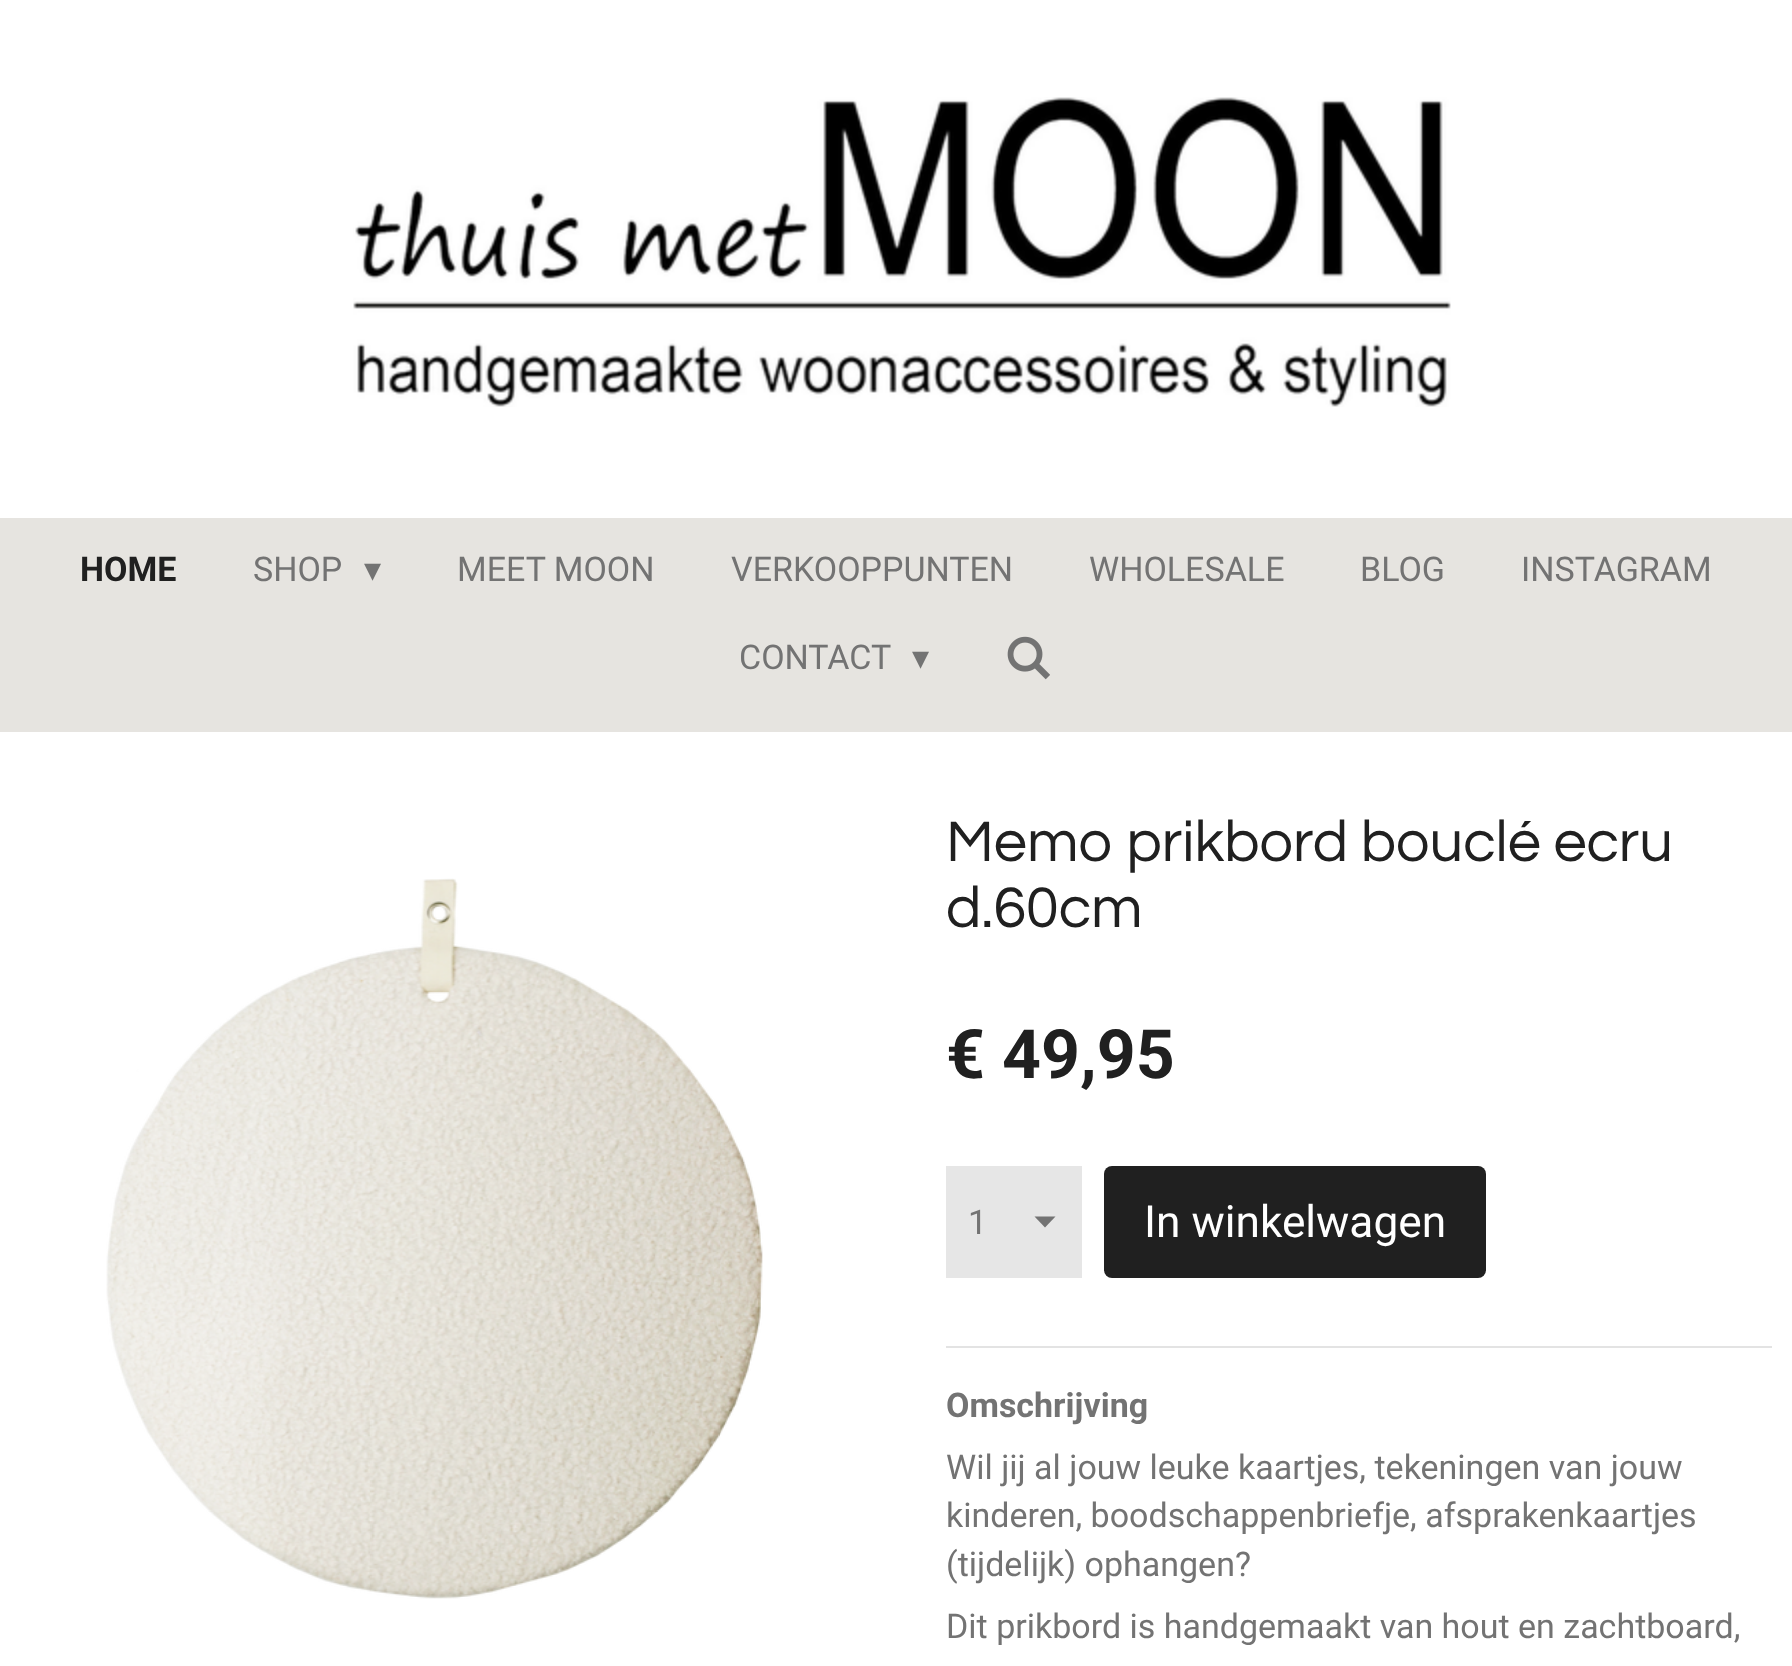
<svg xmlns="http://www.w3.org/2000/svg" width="1792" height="1666">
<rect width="100%" height="100%" fill="#fff"/>
<image x="353" y="97" width="1098" height="310" href="media/1.png"/>
<rect y="518" width="1792" height="214" fill="#e6e4e0"/>
<text x="80" y="581" style="font-family:Roboto;font-size:34px;font-weight:bold;fill:#202020">HOME</text>
<text x="253" y="581" style="font-family:Roboto;font-size:34px;fill:#737373">SHOP</text>
<text x="364" y="581" style="font-family:DejaVu Sans;font-size:34px;fill:#737373">▾</text>
<text x="457" y="581" style="font-family:Roboto;font-size:34px;fill:#737373">MEET MOON</text>
<text x="731" y="581" style="font-family:Roboto;font-size:34px;fill:#737373">VERKOOPPUNTEN</text>
<text x="1089" y="581" style="font-family:Roboto;font-size:34px;fill:#737373">WHOLESALE</text>
<text x="1360" y="581" style="font-family:Roboto;font-size:34px;fill:#737373">BLOG</text>
<text x="1521" y="581" style="font-family:Roboto;font-size:34px;fill:#737373">INSTAGRAM</text>
<text x="739" y="669" style="font-family:Roboto;font-size:34px;fill:#737373">CONTACT</text>
<text x="912" y="669" style="font-family:DejaVu Sans;font-size:34px;fill:#737373">▾</text>
<image x="1007" y="636" width="43" height="44" href="media/2.png"/>
<image x="106" y="878" width="657" height="721" href="media/3.png"/>
<text x="946" y="861" style="font-family:Questrial;font-size:59.4px;fill:#202020">Memo prikbord bouclé ecru</text>
<text x="946" y="927" style="font-family:Questrial;font-size:59.4px;fill:#202020">d.60cm</text>
<text x="946" y="1078" style="font-family:Roboto;font-size:68px;font-weight:bold;fill:#202020">€ 49,95</text>
<rect x="946" y="1166" width="136" height="112" fill="#e6e6e6"/>
<path d="M1045 1227.5l-10.5-11h21z" fill="#737373"/>
<text x="968" y="1234" style="font-family:Roboto;font-size:34px;fill:#737373">1</text>
<rect x="1104" y="1166" width="382" height="112" rx="8" fill="#202020"/>
<text x="1144" y="1237" style="font-family:Roboto;font-size:44.25px;fill:#fff">In winkelwagen</text>
<rect x="946" y="1346" width="826" height="2" fill="#e3e3e3"/>
<text x="946" y="1417" style="font-family:Roboto;font-size:34px;font-weight:bold;fill:#737373">Omschrijving</text>
<text x="946" y="1479" style="font-family:Roboto;font-size:34px;fill:#737373">Wil jij al jouw leuke kaartjes, tekeningen van jouw</text>
<text x="946" y="1527" style="font-family:Roboto;font-size:34px;fill:#737373">kinderen, boodschappenbriefje, afsprakenkaartjes</text>
<text x="946" y="1576" style="font-family:Roboto;font-size:34px;fill:#737373">(tijdelijk) ophangen?</text>
<text x="946" y="1638" style="font-family:Roboto;font-size:34px;fill:#737373">Dit prikbord is handgemaakt van hout en zachtboard,</text>
</svg>
